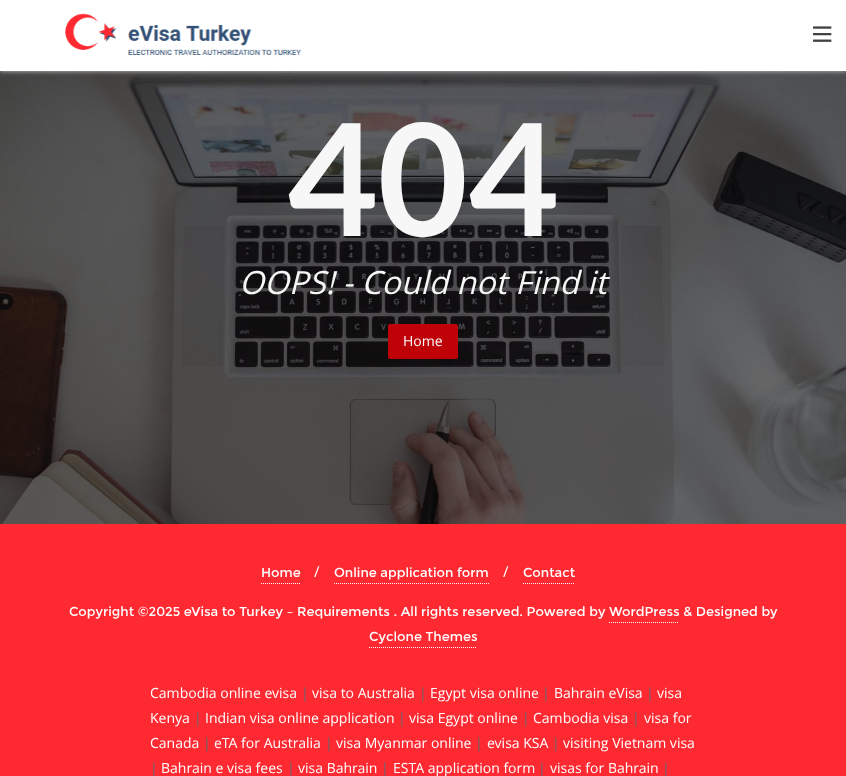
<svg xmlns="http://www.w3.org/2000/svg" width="846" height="776">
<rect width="100%" height="100%" fill="#ff2931"/>
<image x="0" y="71" width="846" height="453" href="media/3.png"/>
<rect width="846" height="71" fill="#ccc" filter="blur(2.5px)"/>
<rect width="846" height="71" fill="#fff"/>
<image x="65" y="13" width="236" height="42" href="media/1.png"/>
<image x="813" y="26" width="19" height="16" href="media/2.png"/>
<text x="287" y="236" style="font-family:Lato;font-size:156px;font-weight:bold;fill:#f7f7f7">404</text>
<text x="239" y="294" style="font-family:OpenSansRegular;font-size:32px;font-style:italic;fill:#f7f7f7">OOPS! - Could not Find it</text>
<rect x="388" y="324" width="70" height="35" rx="2" fill="#bf0108"/>
<text x="403" y="346" style="font-family:OpenSansRegular;font-size:14px;fill:#fff">Home</text>
<path d="M261 583.5h39" fill="none" stroke="#fff" stroke-dasharray="1 1"/>
<text x="261" y="577" style="font-family:Montserrat;font-size:13px;fill:#fff">Home</text>
<text x="314" y="577" style="font-family:OpenSansRegular;font-size:15px;fill:#fff">/</text>
<path d="M334 583.5h155" fill="none" stroke="#fff" stroke-dasharray="1 1"/>
<text x="334" y="577" style="font-family:Montserrat;font-size:13px;fill:#fff">Online application form</text>
<text x="503" y="577" style="font-family:OpenSansRegular;font-size:15px;fill:#fff">/</text>
<path d="M523 583.5h52" fill="none" stroke="#fff" stroke-dasharray="1 1"/>
<text x="523" y="577" style="font-family:Montserrat;font-size:13px;fill:#fff">Contact</text>
<text x="69" y="616" style="font-family:Montserrat;font-size:13px;fill:#fff">Copyright ©2025 eVisa to Turkey – Requirements . All rights reserved. Powered by WordPress &amp; Designed by</text>
<path d="M609 622.5h70" fill="none" stroke="#fff" stroke-dasharray="1 1"/>
<path d="M369 647.5h108" fill="none" stroke="#fff" stroke-dasharray="1 1"/>
<text x="369" y="641" style="font-family:Montserrat;font-size:13px;fill:#fff">Cyclone Themes</text>
<text x="150" y="698" style="font-family:OpenSansRegular;font-size:14px;fill:#fff">Cambodia online evisa</text>
<text x="301" y="698" style="font-family:OpenSansRegular;font-size:14px;fill:#64686d">|</text>
<text x="312" y="698" style="font-family:OpenSansRegular;font-size:14px;fill:#fff">visa to Australia</text>
<text x="419" y="698" style="font-family:OpenSansRegular;font-size:14px;fill:#64686d">|</text>
<text x="430" y="698" style="font-family:OpenSansRegular;font-size:14px;fill:#fff">Egypt visa online</text>
<text x="542" y="698" style="font-family:OpenSansRegular;font-size:14px;fill:#64686d">|</text>
<text x="554" y="698" style="font-family:OpenSansRegular;font-size:14px;fill:#fff">Bahrain eVisa</text>
<text x="646" y="698" style="font-family:OpenSansRegular;font-size:14px;fill:#64686d">|</text>
<text x="657" y="698" style="font-family:OpenSansRegular;font-size:14px;fill:#fff">visa</text>
<text x="150" y="723" style="font-family:OpenSansRegular;font-size:14px;fill:#fff">Kenya</text>
<text x="194" y="723" style="font-family:OpenSansRegular;font-size:14px;fill:#64686d">|</text>
<text x="205" y="723" style="font-family:OpenSansRegular;font-size:14px;fill:#fff">Indian visa online application</text>
<text x="398" y="723" style="font-family:OpenSansRegular;font-size:14px;fill:#64686d">|</text>
<text x="409" y="723" style="font-family:OpenSansRegular;font-size:14px;fill:#fff">visa Egypt online</text>
<text x="522" y="723" style="font-family:OpenSansRegular;font-size:14px;fill:#64686d">|</text>
<text x="533" y="723" style="font-family:OpenSansRegular;font-size:14px;fill:#fff">Cambodia visa</text>
<text x="632" y="723" style="font-family:OpenSansRegular;font-size:14px;fill:#64686d">|</text>
<text x="644" y="723" style="font-family:OpenSansRegular;font-size:14px;fill:#fff">visa for</text>
<text x="150" y="748" style="font-family:OpenSansRegular;font-size:14px;fill:#fff">Canada</text>
<text x="203" y="748" style="font-family:OpenSansRegular;font-size:14px;fill:#64686d">|</text>
<text x="214" y="748" style="font-family:OpenSansRegular;font-size:14px;fill:#fff">eTA for Australia</text>
<text x="325" y="748" style="font-family:OpenSansRegular;font-size:14px;fill:#64686d">|</text>
<text x="336" y="748" style="font-family:OpenSansRegular;font-size:14px;fill:#fff">visa Myanmar online</text>
<text x="475" y="748" style="font-family:OpenSansRegular;font-size:14px;fill:#64686d">|</text>
<text x="487" y="748" style="font-family:OpenSansRegular;font-size:14px;fill:#fff">evisa KSA</text>
<text x="552" y="748" style="font-family:OpenSansRegular;font-size:14px;fill:#64686d">|</text>
<text x="563" y="748" style="font-family:OpenSansRegular;font-size:14px;fill:#fff">visiting Vietnam visa</text>
<text x="150" y="773" style="font-family:OpenSansRegular;font-size:14px;fill:#64686d">|</text>
<text x="161" y="773" style="font-family:OpenSansRegular;font-size:14px;fill:#fff">Bahrain e visa fees</text>
<text x="287" y="773" style="font-family:OpenSansRegular;font-size:14px;fill:#64686d">|</text>
<text x="298" y="773" style="font-family:OpenSansRegular;font-size:14px;fill:#fff">visa Bahrain</text>
<text x="381" y="773" style="font-family:OpenSansRegular;font-size:14px;fill:#64686d">|</text>
<text x="393" y="773" style="font-family:OpenSansRegular;font-size:14px;fill:#fff">ESTA application form</text>
<text x="538" y="773" style="font-family:OpenSansRegular;font-size:14px;fill:#64686d">|</text>
<text x="550" y="773" style="font-family:OpenSansRegular;font-size:14px;fill:#fff">visas for Bahrain</text>
<text x="662" y="773" style="font-family:OpenSansRegular;font-size:14px;fill:#64686d">|</text>
</svg>
